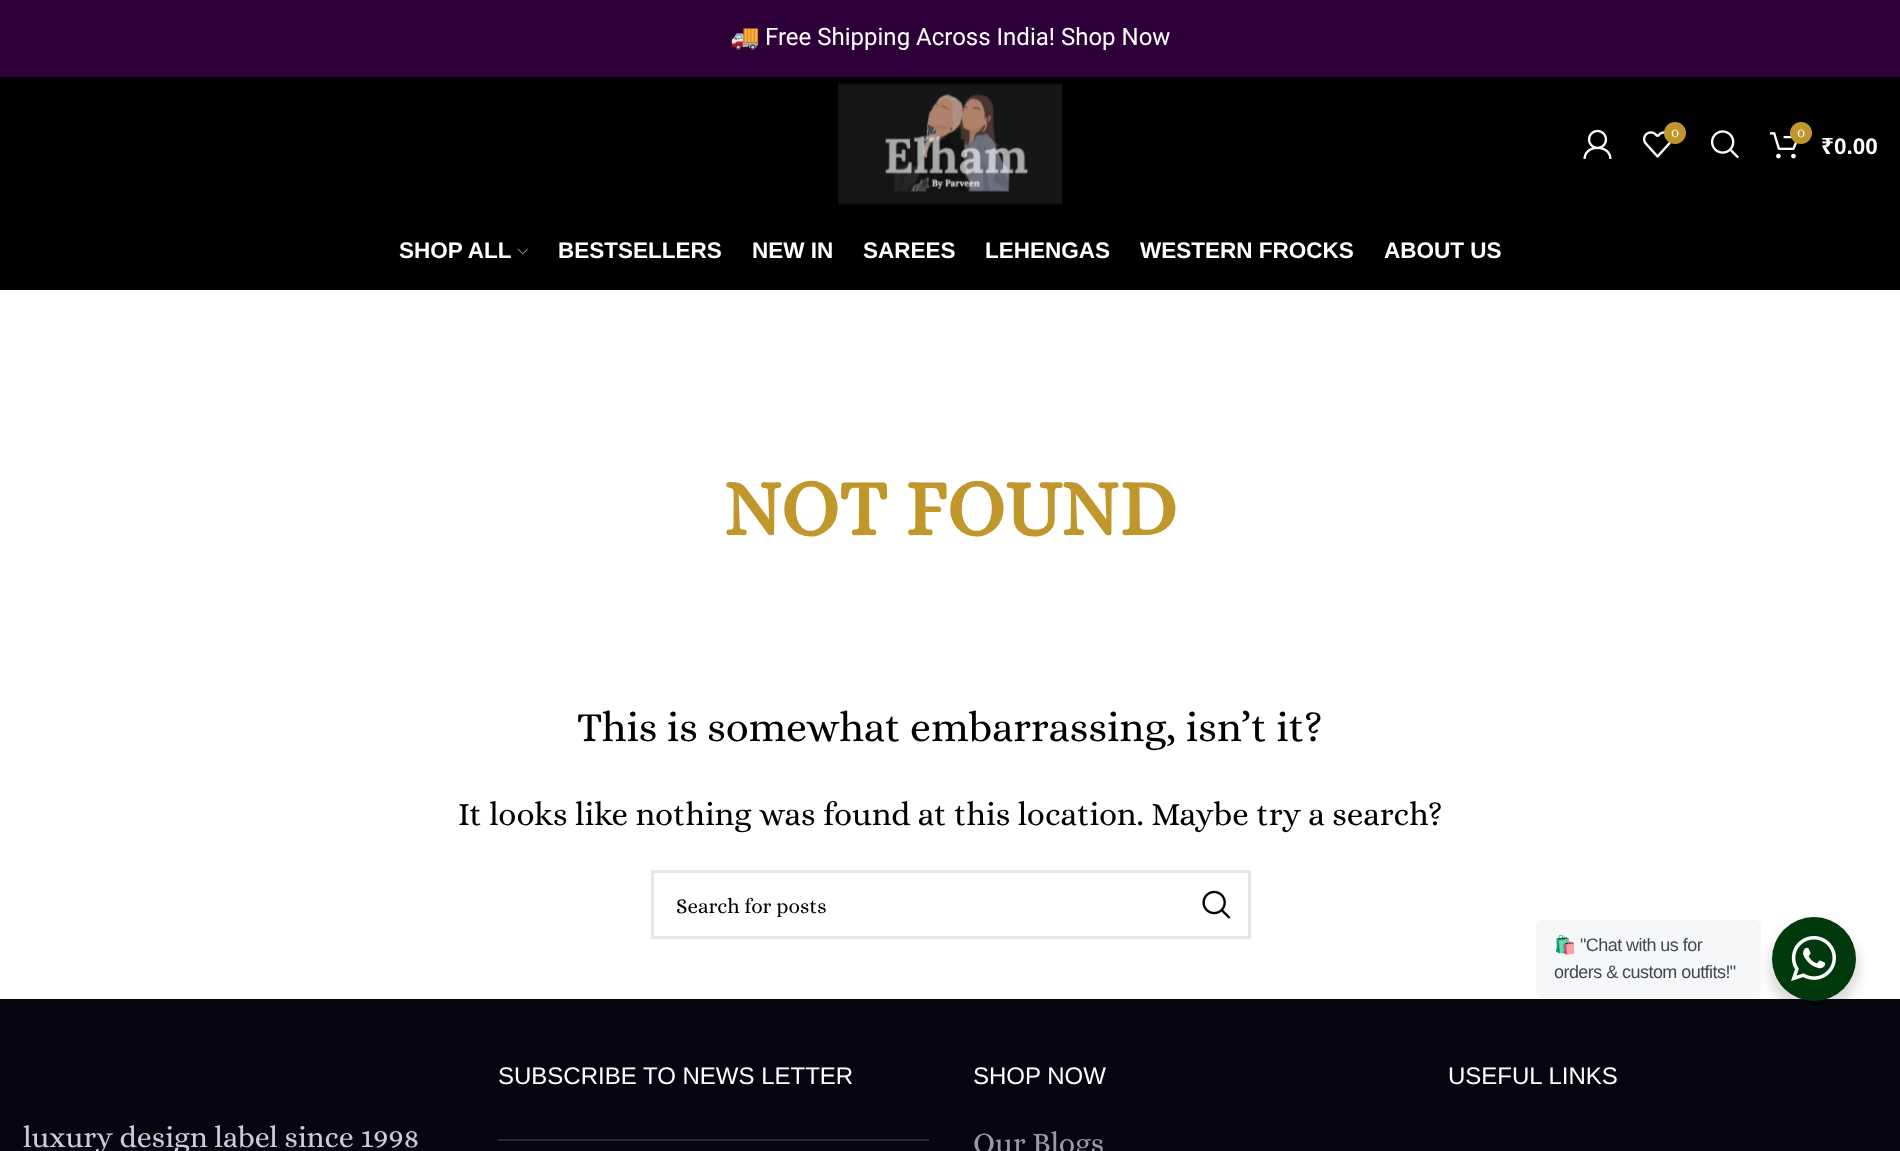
<svg xmlns="http://www.w3.org/2000/svg" width="1900" height="1151">
<defs>
<clipPath id="clip1"><rect x="677" y="893" width="502" height="24"/></clipPath>
</defs>
<rect width="100%" height="100%" fill="#fff"/>
<rect width="1900" height="77" fill="#2e003a"/>
<text x="730" y="45" style="font-family:Noto Color Emoji;font-size:24px;fill:#fff">🚚</text>
<text x="765" y="45" style="font-family:Roboto;font-size:24px;fill:#fff">Free Shipping Across India! Shop Now</text>
<rect y="77" width="1900" height="213" fill="#000"/>
<image x="838" y="83" width="224" height="122" href="media/1.png"/>
<image x="1583" y="129" width="29" height="30" href="media/2.png"/>
<image x="1643" y="131" width="28" height="27" href="media/3.png"/>
<circle cx="1675" cy="133" r="11" fill="#bf972b"/>
<text x="1671" y="137" style="font-family:Alice;font-size:14px;fill:#fff">0</text>
<image x="1711" y="130" width="28" height="29" href="media/4.png"/>
<image x="1770" y="132" width="27" height="27" href="media/5.png"/>
<circle cx="1801" cy="133" r="11" fill="#bf972b"/>
<text x="1797" y="137" style="font-family:Alice;font-size:14px;fill:#fff">0</text>
<text x="1821" y="154" style="font-family:Noto Sans;font-size:22.5px;font-weight:bold;fill:#fff">₹</text>
<text x="1834" y="154" style="font-family:Liberation Sans;font-size:22.5px;font-weight:bold;fill:#fff">0.00</text>
<text x="399" y="258" style="font-family:Liberation Sans;font-size:22.5px;font-weight:bold;fill:#fff">SHOP ALL</text>
<image x="517" y="248" width="11" height="7" href="media/6.png"/>
<text x="558" y="258" style="font-family:Liberation Sans;font-size:22.5px;font-weight:bold;fill:#fff">BESTSELLERS</text>
<text x="752" y="258" style="font-family:Liberation Sans;font-size:22.5px;font-weight:bold;fill:#fff">NEW IN</text>
<text x="863" y="258" style="font-family:Liberation Sans;font-size:22.5px;font-weight:bold;fill:#fff">SAREES</text>
<text x="985" y="258" style="font-family:Liberation Sans;font-size:22.5px;font-weight:bold;fill:#fff">LEHENGAS</text>
<text x="1140" y="258" style="font-family:Liberation Sans;font-size:22.5px;font-weight:bold;fill:#fff">WESTERN FROCKS</text>
<text x="1384" y="258" style="font-family:Liberation Sans;font-size:22.5px;font-weight:bold;fill:#fff">ABOUT US</text>
<text x="723" y="535" style="font-family:Alice;font-size:79.75px;font-weight:bold;fill:#bf972b">NOT FOUND</text>
<text x="577" y="741" style="font-family:Alice;font-size:42px;fill:#000">This is somewhat embarrassing, isn’t it?</text>
<text x="458" y="825" style="font-family:Alice;font-size:33px;fill:#000">It looks like nothing was found at this location. Maybe try a search?</text>
<rect x="652.5" y="871.5" width="597" height="66" fill="none" stroke="#e6e6e6" stroke-width="3"/>
<g clip-path="url(#clip1)">
<text x="676" y="913" style="font-family:Alice;font-size:21px;fill:#000">Search for posts</text>
</g>
<image x="1202" y="890" width="29" height="29" href="media/7.png"/>
<rect y="999" width="1900" height="152" fill="#060610"/>
<rect x="498" y="1139" width="431" height="2" fill="#2b2b34"/>
<text x="498" y="1084" style="font-family:Liberation Sans;font-size:24px;fill:#fff">SUBSCRIBE TO NEWS LETTER</text>
<text x="973" y="1084" style="font-family:Liberation Sans;font-size:24px;fill:#fff">SHOP NOW</text>
<text x="973" y="1153" style="font-family:Alice;font-size:30px;fill:#9b9b9f">Our Blogs</text>
<text x="1448" y="1084" style="font-family:Liberation Sans;font-size:24px;fill:#fff">USEFUL LINKS</text>
<text x="23" y="1147" style="font-family:Alice;font-size:30px;fill:#cdcdcf">luxury design label since 1998</text>
<rect x="1769" y="923" width="90" height="90" rx="45" fill="#00000024" filter="blur(6px)"/>
<rect x="1536" y="920" width="225" height="78" rx="6" fill="#f5f7f9"/>
<text x="1554" y="951" style="font-family:Noto Color Emoji;font-size:18px;letter-spacing:-0.55px;fill:#43474e">🛍️</text>
<text x="1580" y="951" style="font-family:Liberation Sans;font-size:18px;letter-spacing:-0.55px;fill:#43474e">"Chat with us for</text>
<text x="1554" y="978" style="font-family:Liberation Sans;font-size:18px;letter-spacing:-0.55px;fill:#43474e">orders &amp; custom outfits!"</text>
<circle cx="1814" cy="959" r="42" fill="#003a0c"/>
<image x="1791" y="936" width="45" height="45" href="media/8.png"/>
</svg>
